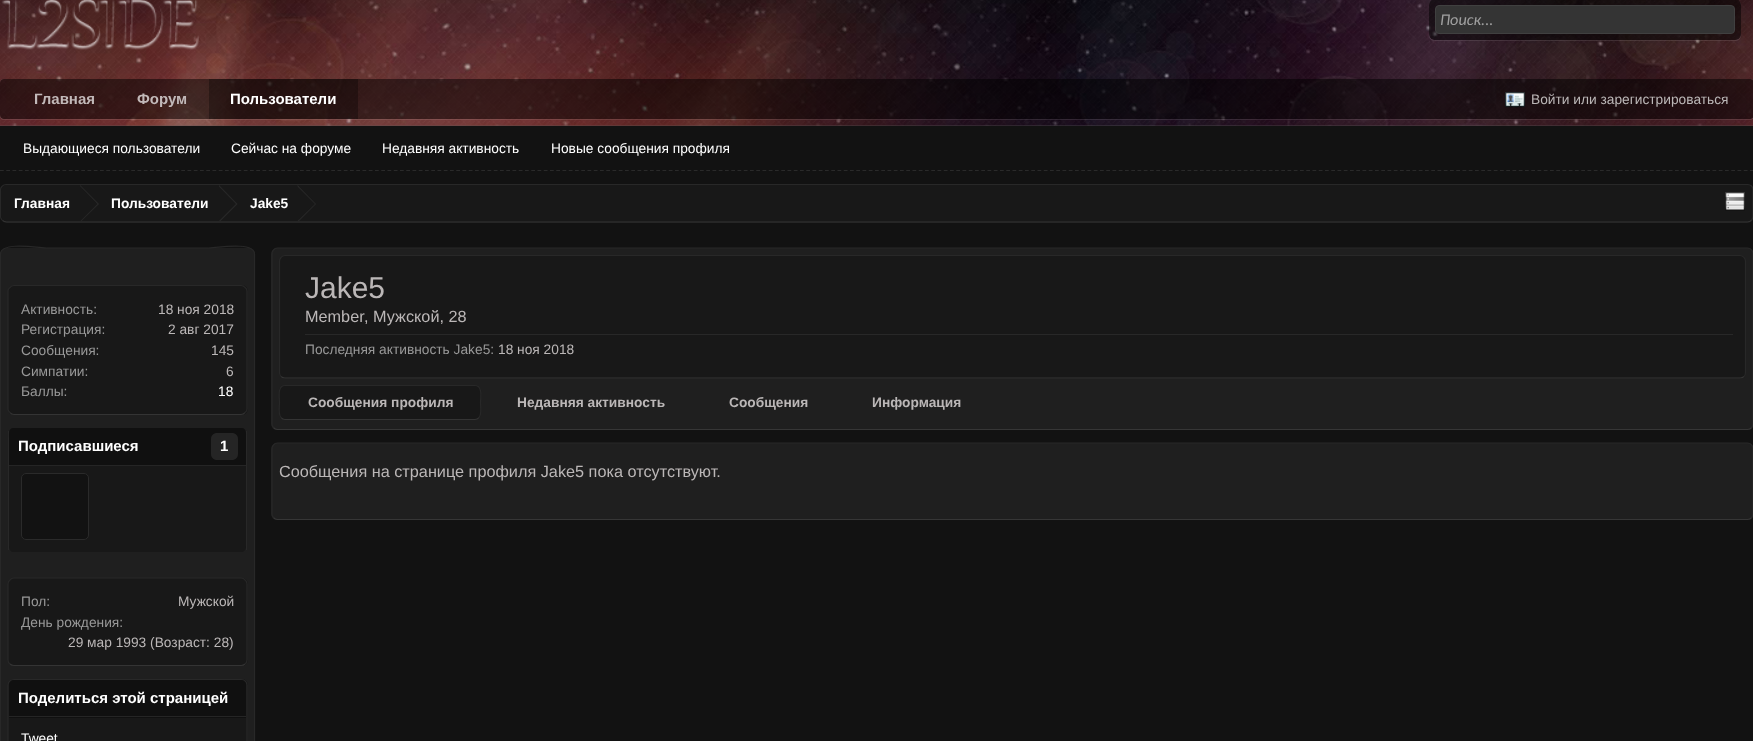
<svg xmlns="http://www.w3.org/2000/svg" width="1753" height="741">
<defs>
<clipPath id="clip1"><path d="M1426 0h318v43h-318zm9-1h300c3.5 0 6 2.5 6 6v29c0 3.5-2.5 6-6 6h-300c-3.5 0-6-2.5-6-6v-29c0-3.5 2.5-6 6-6z" clip-rule="evenodd"/></clipPath>
<clipPath id="clip2"><path d="M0 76h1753v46h-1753zm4 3h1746c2 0 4 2 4 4v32c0 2-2 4-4 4h-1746c-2 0-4-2-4-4v-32c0-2 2-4 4-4z" clip-rule="evenodd"/></clipPath>
<clipPath id="clip3"><rect x="1" y="185" width="1752" height="36" rx="5"/></clipPath>
</defs>
<rect width="100%" height="100%" fill="#121212"/>
<image x="0" y="0" width="1753" height="126" href="media/1.png"/>
<image x="0" y="0" width="1753" height="125" href="media/2.png"/>
<rect y="125" width="1753" height="1" fill="#ffffff1a"/>
<image x="1" y="0" width="198" height="50" href="media/3.png"/>
<path d="M1429 36c0 3 3 5 6 5h300c3 0 6-2 6-5c-1 2-3 4-6 4h-300c-3 0-5-2-6-4z" fill="#ffffff1a"/>
<g clip-path="url(#clip1)">
<rect x="1429" y="-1" width="312" height="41" rx="6" fill="#ffffff40" filter="blur(0.5px)"/>
</g>
<rect x="1429" y="-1" width="312" height="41" rx="6" fill="#00000080"/>
<rect x="1435.5" y="5.5" width="299" height="28" rx="3.5" fill="#343434" stroke="#404040"/>
<text x="1440" y="25" style="font-family:Carlito;font-size:16.25px;font-style:italic;fill:#a0a0a0">Поиск...</text>
<path d="M0 115c0 3 1 5 4 5h1746c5 0 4-6 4-9v-28v32c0 2-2 4-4 4h-1746c-2 0-4-2-4-4z" fill="#ffffff1a"/>
<g clip-path="url(#clip2)">
<rect y="79" width="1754" height="40" rx="4" fill="#ffffff40" filter="blur(0.5px)"/>
</g>
<rect y="79" width="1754" height="40" rx="4" fill="#00000080"/>
<rect x="209" y="79" width="149" height="40" fill="#0000004d"/>
<text x="230" y="104" style="font-family:Liberation Sans;font-size:15px;font-weight:bold;fill:#fff">Пользователи</text>
<text x="23" y="153" style="font-family:Liberation Sans;font-size:13.75px;fill:#fff">Выдающиеся пользователи</text>
<text x="231" y="153" style="font-family:Liberation Sans;font-size:13.75px;fill:#fff">Сейчас на форуме</text>
<text x="382" y="153" style="font-family:Liberation Sans;font-size:13.75px;fill:#fff">Недавняя активность</text>
<text x="551" y="153" style="font-family:Liberation Sans;font-size:13.75px;fill:#fff">Новые сообщения профиля</text>
<text x="34" y="104" style="font-family:Liberation Sans;font-size:15px;font-weight:bold;fill:#c2b9b9">Главная</text>
<text x="137" y="104" style="font-family:Liberation Sans;font-size:15px;font-weight:bold;fill:#c2b9b9">Форум</text>
<image x="1505" y="92" width="20" height="16" href="media/4.png"/>
<text x="1531" y="104" style="font-family:Liberation Sans;font-size:13.75px;fill:#bbb7b7">Войти или зарегистрироваться</text>
<path d="M0 170.5h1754" fill="none" stroke="#2a2a2a" stroke-width="1.2" stroke-dasharray="3.75 2.5"/>
<rect y="184" width="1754" height="39" rx="6" fill="#181818"/>
<path d="M1751.5 220c-1 1.5-2.5 2-4 2h-1741c-1.5 0-3-.5-4-2" fill="none" stroke="#343434" stroke-width="1.2"/>
<path d="M2.5 220c-1.5-1-2-2.5-2-4v-26c0-1.5 .5-3 2-4c1-1 2.5-1.5 3.5-1.5h1741.5c1.5 0 3 .5 4 1.5c1 1 1.5 2.5 1.5 4v26c0 1.5-.5 3-1.5 4" fill="none" stroke="#282828" stroke-width="1.2"/>
<g clip-path="url(#clip3)">
<path d="M7 185h73v38h-73c-3.5 0-6-2.5-6-6v-26c0-3.5 2.5-6 6-6z" fill="#181818"/>
</g>
<text x="14" y="208" style="font-family:Liberation Sans;font-size:13.75px;font-weight:bold;fill:#fff">Главная</text>
<path d="M81.5 221h-1.5v-36l19 19z" fill="#282828"/>
<path d="M80.5 221h-1.5v-36l18.5 19z" fill="#181818"/>
<text x="111" y="208" style="font-family:Liberation Sans;font-size:13.75px;font-weight:bold;fill:#fff">Пользователи</text>
<path d="M220.5 221h-1.5v-36l18.5 19z" fill="#282828"/>
<path d="M219 221h-1.5v-36l18.5 19z" fill="#181818"/>
<text x="250" y="208" style="font-family:Liberation Sans;font-size:13.75px;font-weight:bold;fill:#fff">Jake5</text>
<path d="M299 221h-1.5v-36l18.5 19z" fill="#282828"/>
<path d="M297.5 221h-1.5v-36l19 19z" fill="#181818"/>
<image x="1725" y="192" width="20" height="19" href="media/5.png"/>
<rect y="248" width="255" height="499" rx="6" fill="#1f1f1f"/>
<path d="M2.5 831.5l-2-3.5v-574c0-13 39-6 46-6h162c7 0 46-7 46 6v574l-2 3.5" fill="none" stroke="#282828" stroke-width="1.2"/>
<rect x="8" y="285" width="240" height="130" rx="6" fill="#181818"/>
<path d="M245 412.5c-1 1.5-2.5 2-4 2h-227c-1.5 0-3-.5-4-2" fill="none" stroke="#343434" stroke-width="1.2"/>
<path d="M10 412.5c-1.5-1-2-2.5-2-3.5v-118c0-1 .5-2.5 2-3.5c1-1.5 2.5-2 4-2h227c1.5 0 3 .5 4 2c1.5 1 2 2.5 2 3.5v118c0 1-.5 2.5-2 3.5" fill="none" stroke="#282828" stroke-width="1.2"/>
<text x="21" y="314" style="font-family:Liberation Sans;font-size:13.75px;fill:#989898">Активность:</text>
<text x="158" y="314" style="font-family:Liberation Sans;font-size:13.75px;fill:#bbb7b7">18 ноя 2018</text>
<text x="21" y="334" style="font-family:Liberation Sans;font-size:13.75px;fill:#989898">Регистрация:</text>
<text x="168" y="334" style="font-family:Liberation Sans;font-size:13.75px;fill:#bbb7b7">2 авг 2017</text>
<text x="21" y="355" style="font-family:Liberation Sans;font-size:13.75px;fill:#989898">Сообщения:</text>
<text x="211" y="355" style="font-family:Liberation Sans;font-size:13.75px;fill:#bbb7b7">145</text>
<text x="21" y="376" style="font-family:Liberation Sans;font-size:13.75px;fill:#989898">Симпатии:</text>
<text x="226" y="376" style="font-family:Liberation Sans;font-size:13.75px;fill:#bbb7b7">6</text>
<text x="21" y="396" style="font-family:Liberation Sans;font-size:13.75px;fill:#989898">Баллы:</text>
<text x="218" y="396" style="font-family:Liberation Sans;font-size:13.75px;fill:#fff">18</text>
<path d="M14 428h227c3 0 5 2 5 6v112c0 4-2 6-5 6h-227c-3 0-5-2-5-6v-112c0-4 2-6 5-6z" fill="#181818"/>
<rect x="246" y="431" width="1" height="119" fill="#282828"/>
<rect x="8" y="431" width="1" height="119" fill="#282828"/>
<path d="M13 428h229c5 0 4 7 4 10v28h-237v-28c0-3-1-10 4-10z" fill="#0000004d"/>
<rect x="9" y="465" width="237" height="1" fill="#252525"/>
<text x="18" y="451" style="font-family:Liberation Sans;font-size:15px;font-weight:bold;fill:#fff">Подписавшиеся</text>
<path d="M217 433h15c3.5 0 6 2.5 6 6v15c0 3.5-2.5 6-6 6h-15c-3.5 0-6-2.5-6-6v-15c0-3.5 2.5-6 6-6z" fill="#252525"/>
<text x="220" y="451" style="font-family:Liberation Sans;font-size:15px;font-weight:bold;fill:#fff">1</text>
<rect x="21.5" y="473.5" width="67" height="66" rx="4.5" fill="#121212" stroke="#2a2a2a"/>
<rect x="8" y="578" width="240" height="88" rx="6" fill="#181818"/>
<path d="M245 664c-1 1-2.5 1.5-4 1.5h-227c-1.5 0-3-.5-4-1.5" fill="none" stroke="#343434" stroke-width="1.2"/>
<path d="M10 664c-1.5-1-2-2.5-2-4v-76c0-1.5 .5-3 2-4c1-1.5 2.5-2 4-2h227c1.5 0 3 .5 4 2c1.5 1 2 2.5 2 4v76c0 1.5-.5 3-2 4" fill="none" stroke="#282828" stroke-width="1.2"/>
<text x="21" y="606" style="font-family:Liberation Sans;font-size:13.75px;fill:#989898">Пол:</text>
<text x="178" y="606" style="font-family:Liberation Sans;font-size:13.75px;fill:#bbb7b7">Мужской</text>
<text x="21" y="627" style="font-family:Liberation Sans;font-size:13.75px;fill:#989898">День рождения:</text>
<text x="68" y="647" style="font-family:Liberation Sans;font-size:13.75px;fill:#bbb7b7">29 мар 1993 (Возраст: 28)</text>
<rect x="8" y="679" width="240" height="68" rx="6" fill="#181818"/>
<path d="M10 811.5c-1.5-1-2-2.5-2-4v-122.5c0-1.5 .5-3 2-4c1-1 2.5-1.5 4-1.5h227c1.5 0 3 .5 4 1.5c1.5 1 2 2.5 2 4v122.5c0 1.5-.5 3-2 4" fill="none" stroke="#282828" stroke-width="1.2"/>
<path d="M13 680h229c2 0 4 2 4 4v34h-237v-34c0-2 2-4 4-4z" fill="#0000004d"/>
<rect x="9" y="716" width="237" height="1" fill="#252525"/>
<text x="18" y="703" style="font-family:Liberation Sans;font-size:15px;font-weight:bold;fill:#fff">Поделиться этой страницей</text>
<text x="21" y="743" style="font-family:Liberation Sans;font-size:13.75px;fill:#fff">Tweet</text>
<rect x="271" y="248" width="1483" height="182" rx="6" fill="#1f1f1f"/>
<path d="M1751.5 427.5c-1 1.5-2.5 2-4 2h-1470c-1.5 0-3-.5-4-2" fill="none" stroke="#363636" stroke-width="1.2"/>
<path d="M273.5 427.5c-1-1-1.5-2.5-1.5-3.5v-170c0-1.5 .5-3 1.5-4c1-1.5 2.5-2 4-2h1470c1.5 0 3 .5 4 2c1 1 1.5 2.5 1.5 4v170c0 1-.5 2.5-1.5 3.5" fill="none" stroke="#282828" stroke-width="1.2"/>
<rect x="279" y="255" width="1467" height="124" rx="6" fill="#181818"/>
<path d="M1744 376.5c-1 1-2.5 1.5-4 1.5h-1455c-1.5 0-3-.5-4-1.5" fill="none" stroke="#343434" stroke-width="1.2"/>
<path d="M281 376.5c-1-1-1.5-2.5-1.5-4v-111.5c0-1 .5-2.5 1.5-3.5c1-1.5 2.5-2 4-2h1455c1.5 0 3 .5 4 2c1 1 1.5 2.5 1.5 3.5v111.5c0 1.5-.5 3-1.5 4" fill="none" stroke="#282828" stroke-width="1.2"/>
<text x="305" y="298" style="font-family:Liberation Sans;font-size:30px;fill:#bbb7b7">Jake5</text>
<text x="305" y="322" style="font-family:Liberation Sans;font-size:16.25px;fill:#bbb7b7">Member</text>
<text x="364" y="322" style="font-family:Liberation Sans;font-size:16.25px;fill:#bbb7b7">, Мужской, 28</text>
<rect x="305" y="334" width="1428" height="1" fill="#282828"/>
<text x="305" y="354" style="font-family:Liberation Sans;font-size:13.75px;fill:#989898">Последняя активность Jake5:</text>
<text x="498" y="354" style="font-family:Liberation Sans;font-size:13.75px;fill:#bbb7b7">18 ноя 2018</text>
<rect x="279" y="385" width="202" height="35" rx="6" fill="#181818"/>
<path d="M479 417.5c-1 1.5-2.5 2-4 2h-190c-1.5 0-3-.5-4-2" fill="none" stroke="#343434" stroke-width="1.2"/>
<path d="M281 417.5c-3-3-1.5-11-1.5-15c0-4.5-2.5-17 5.5-17h190c8 0 5.5 12.5 5.5 17c0 4 1.5 12-1.5 15" fill="none" stroke="#282828" stroke-width="1.2"/>
<text x="308" y="407" style="font-family:Liberation Sans;font-size:13.75px;font-weight:bold;fill:#bbb7b7">Сообщения профиля</text>
<text x="517" y="407" style="font-family:Liberation Sans;font-size:13.75px;font-weight:bold;fill:#bbb7b7">Недавняя активность</text>
<text x="729" y="407" style="font-family:Liberation Sans;font-size:13.75px;font-weight:bold;fill:#bbb7b7">Сообщения</text>
<text x="872" y="407" style="font-family:Liberation Sans;font-size:13.75px;font-weight:bold;fill:#bbb7b7">Информация</text>
<rect x="271" y="443" width="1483" height="77" rx="6" fill="#1f1f1f"/>
<path d="M1751.5 517.5c-1 1.5-2.5 2-4 2h-1470c-1.5 0-3-.5-4-2" fill="none" stroke="#363636" stroke-width="1.2"/>
<path d="M273.5 517.5c-1-1-1.5-2.5-1.5-3.5v-65c0-1.5 .5-3 1.5-4c1-1.5 2.5-2 4-2h1470c1.5 0 3 .5 4 2c1 1 1.5 2.5 1.5 4v65c0 1-.5 2.5-1.5 3.5" fill="none" stroke="#282828" stroke-width="1.2"/>
<text x="279" y="477" style="font-family:Liberation Sans;font-size:16.25px;fill:#bbb7b7">Сообщения на странице профиля Jake5 пока отсутствуют.</text>
</svg>
